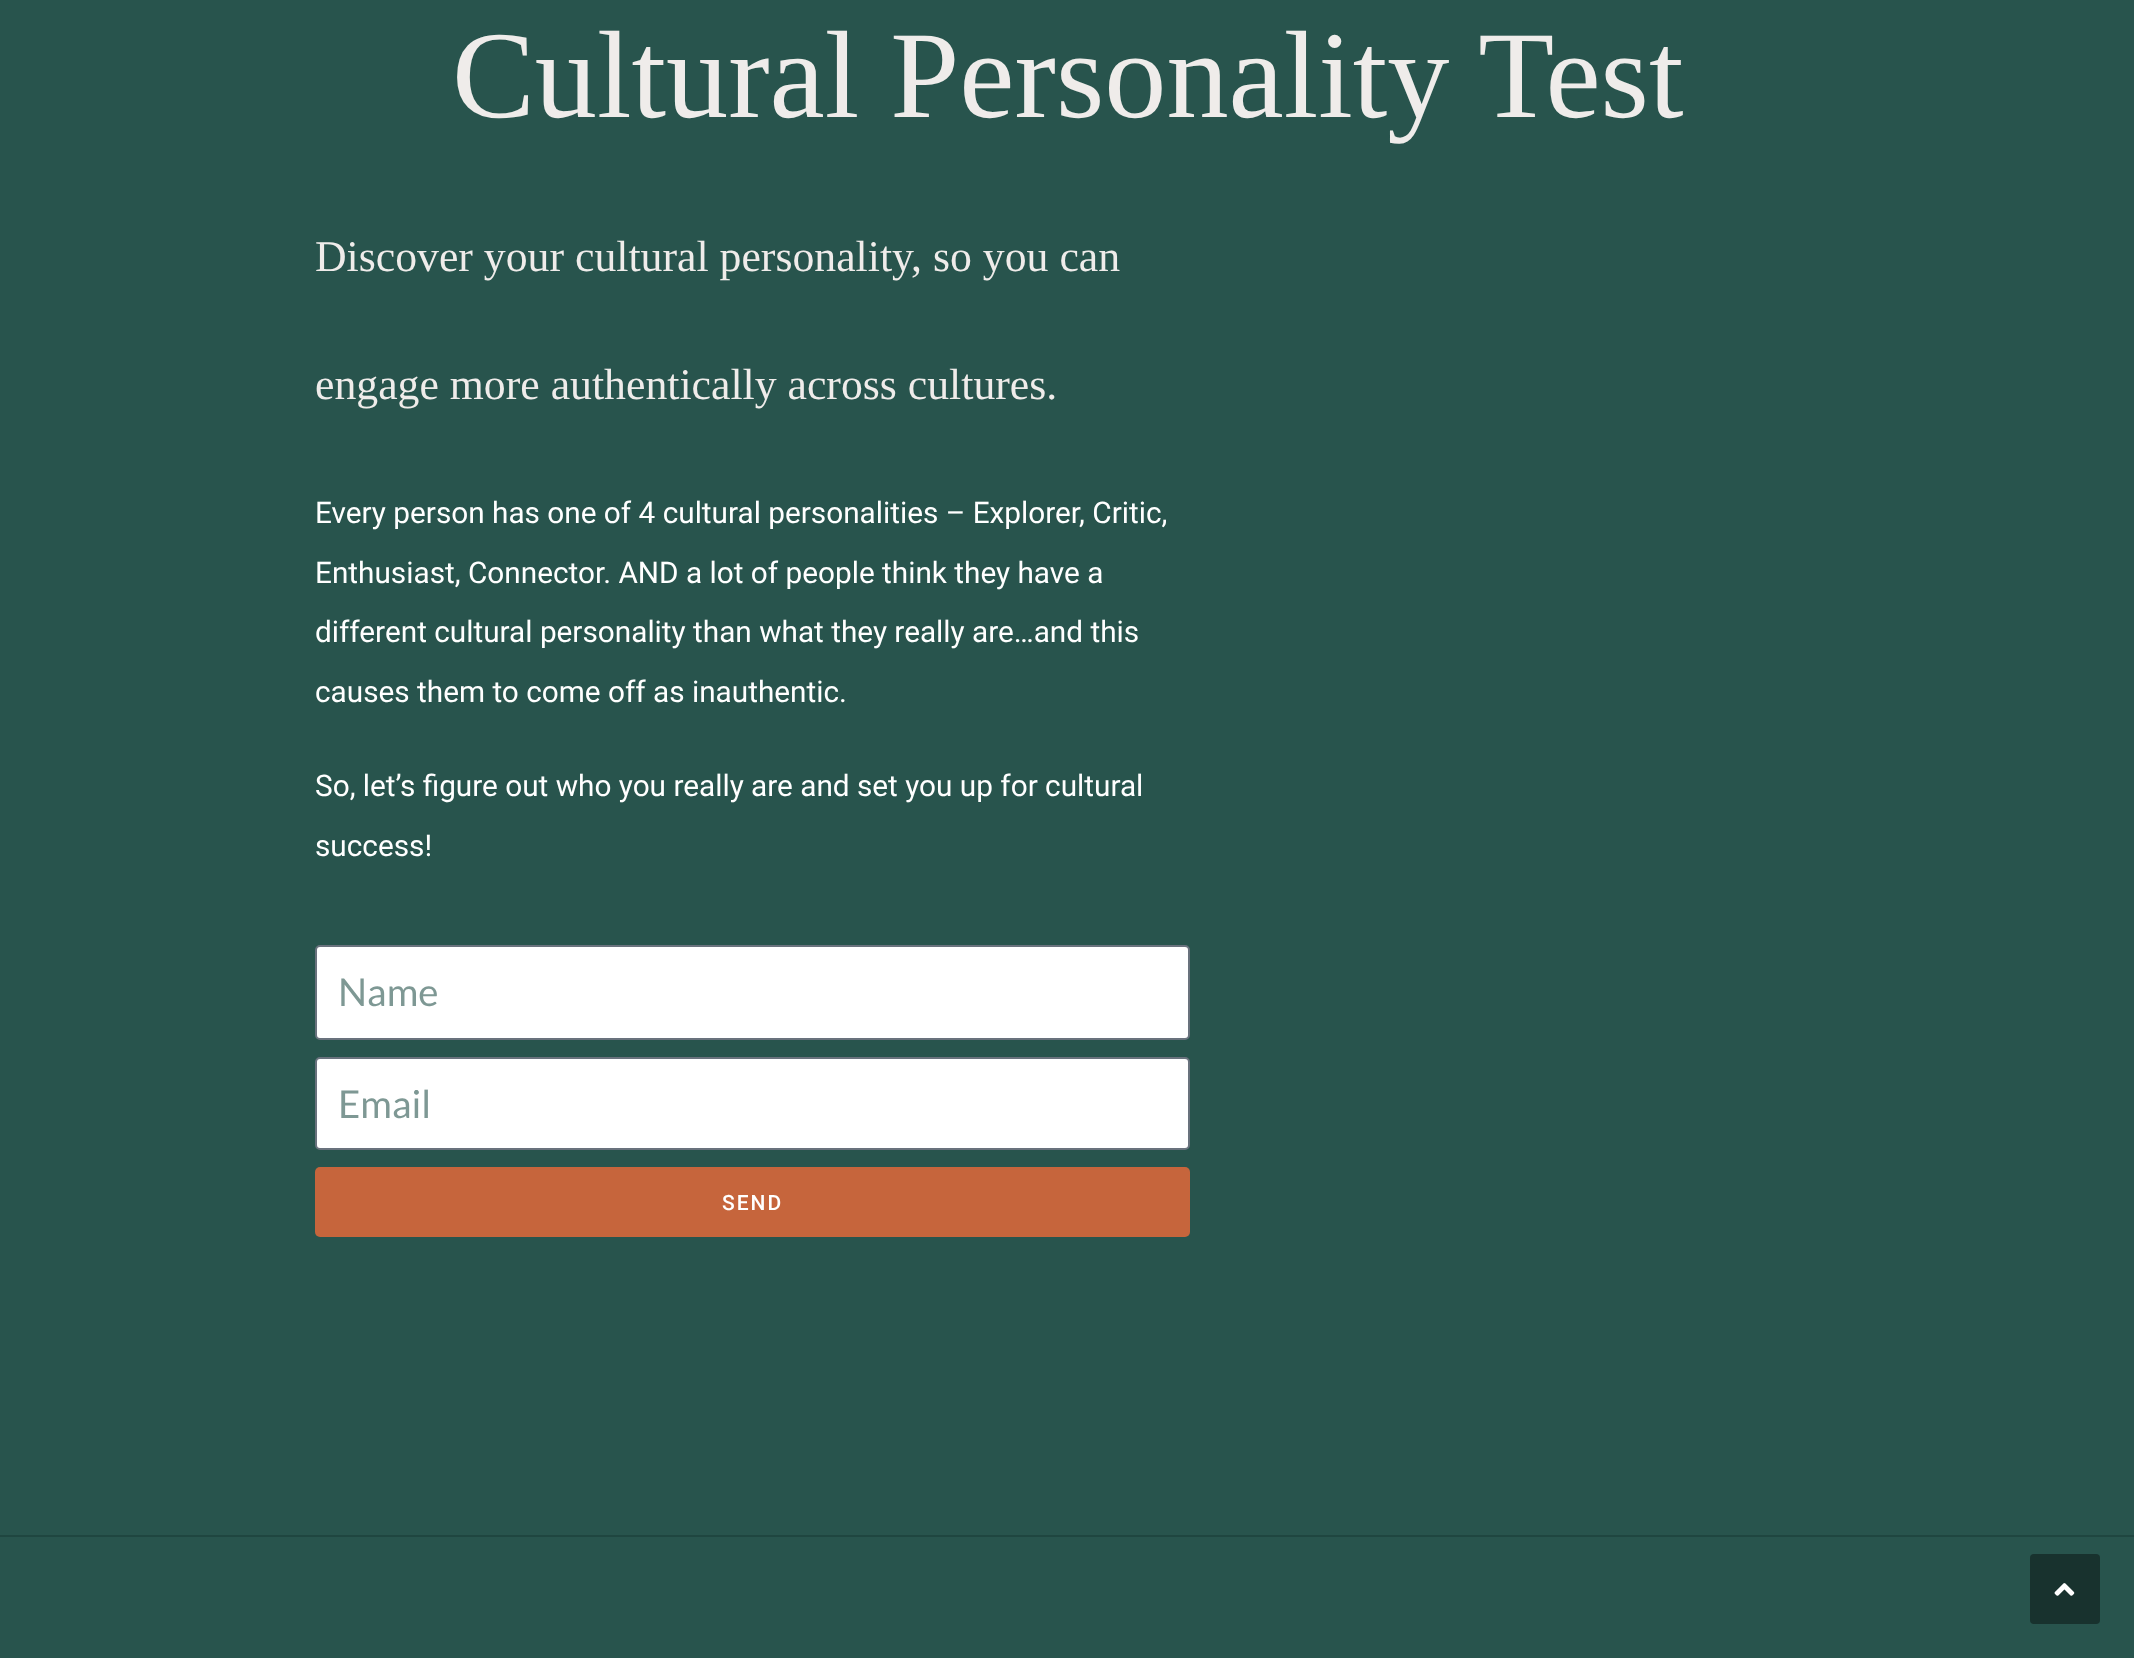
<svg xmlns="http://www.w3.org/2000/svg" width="2134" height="1658">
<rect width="100%" height="100%" fill="#28544d"/>
<text x="452" y="117" style="font-family:Liberation Serif;font-size:124.25px;fill:#efecea">Cultural Personality Test</text>
<text x="315" y="271" style="font-family:Liberation Serif;font-size:43.75px;fill:#efecea">Discover your cultural personality, so you can</text>
<text x="315" y="399" style="font-family:Liberation Serif;font-size:43.75px;fill:#efecea">engage more authentically across cultures.</text>
<text x="315" y="523" style="font-family:Roboto;font-size:29.75px;fill:#fff">Every person has one of 4 cultural personalities – Explorer, Critic,</text>
<text x="315" y="583" style="font-family:Roboto;font-size:29.75px;fill:#fff">Enthusiast, Connector. AND a lot of people think they have a</text>
<text x="315" y="642" style="font-family:Roboto;font-size:29.75px;fill:#fff">different cultural personality than what they really are…and this</text>
<text x="315" y="702" style="font-family:Roboto;font-size:29.75px;fill:#fff">causes them to come off as inauthentic.</text>
<text x="315" y="796" style="font-family:Roboto;font-size:29.75px;fill:#fff">So, let’s figure out who you really are and set you up for cultural</text>
<text x="315" y="856" style="font-family:Roboto;font-size:29.75px;fill:#fff">success!</text>
<rect x="316" y="946" width="873" height="93" rx="4" fill="#fff" stroke="#69727d" stroke-width="2"/>
<text x="338" y="1006" style="font-family:Lato;font-size:38.5px;fill:#7e9894">Name</text>
<rect x="316" y="1058" width="873" height="91" rx="4" fill="#fff" stroke="#69727d" stroke-width="2"/>
<text x="338" y="1118" style="font-family:Lato;font-size:38.5px;fill:#7e9894">Email</text>
<rect x="315" y="1167" width="875" height="70" rx="5" fill="#c6653c"/>
<text x="722" y="1210" style="font-family:Roboto;font-size:21px;font-weight:500;letter-spacing:2px;fill:#fff">SEND</text>
<rect y="1535" width="2134" height="2" fill="#1f4640"/>
<rect x="2030" y="1554" width="70" height="70" rx="4" fill="#18322e"/>
<image x="2054" y="1583" width="21" height="13" href="media/1.png"/>
</svg>
